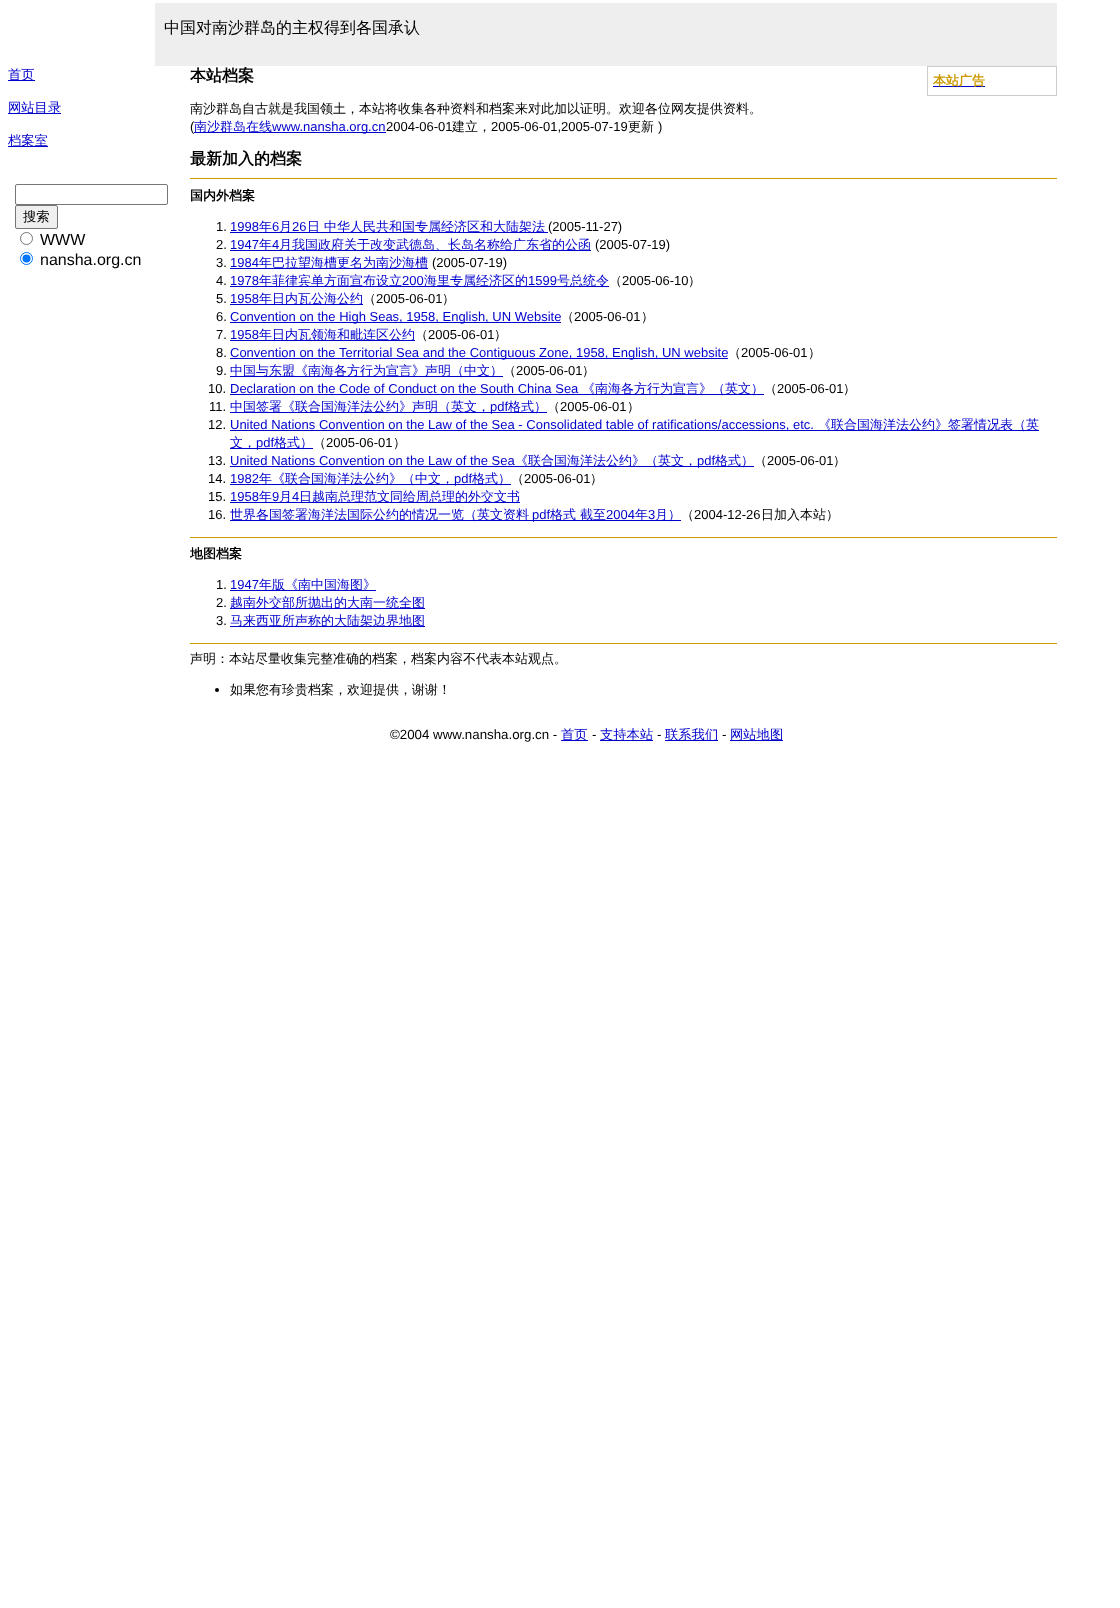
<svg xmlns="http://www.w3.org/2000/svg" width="1120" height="1608">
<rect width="100%" height="100%" fill="#fff"/>
<rect x="155" y="3" width="902" height="63" fill="#eee"/>
<text x="164" y="33" style="font-family:WenQuanYi Zen Hei;font-size:16px;font-weight:500;fill:#000">中国对南沙群岛的主权得到各国承认</text>
<rect x="8" y="80" width="27" height="1" fill="#00c"/>
<text x="8" y="79" style="font-family:WenQuanYi Zen Hei;font-size:13.3px;font-weight:500;fill:#00c">首页</text>
<rect x="8" y="113" width="53" height="1" fill="#00c"/>
<text x="8" y="112" style="font-family:WenQuanYi Zen Hei;font-size:13.3px;font-weight:500;fill:#00c">网站目录</text>
<rect x="8" y="146" width="40" height="1" fill="#00c"/>
<text x="8" y="145" style="font-family:WenQuanYi Zen Hei;font-size:13.3px;font-weight:500;fill:#00c">档案室</text>
<rect x="15.5" y="184.5" width="152" height="20" rx="1.5" fill="none" stroke="#767676"/>
<rect x="15.5" y="205.5" width="42" height="23" rx="1.5" fill="#efefef" stroke="#767676"/>
<text x="23" y="221" style="font-family:WenQuanYi Zen Hei;font-size:13.3px;font-weight:500;fill:#000">搜索</text>
<circle cx="26.5" cy="238.5" r="6" fill="none" stroke="#767676"/>
<text x="40" y="245" style="font-family:Liberation Sans;font-size:16px;fill:#000">WWW</text>
<circle cx="26.5" cy="258.5" r="6" fill="none" stroke="#0075ff"/>
<circle cx="26.5" cy="258.5" r="4" fill="#0075ff"/>
<text x="40" y="265" style="font-family:Liberation Sans;font-size:16px;fill:#000">nansha.org.cn</text>
<text x="190" y="81" style="font-family:WenQuanYi Zen Hei;font-size:16px;font-weight:bold;fill:#000">本站档案</text>
<rect x="927" y="66" width="130" height="30" fill="#ccc"/>
<rect x="928" y="67" width="128" height="28" fill="#fff"/>
<rect x="933" y="86" width="52" height="1" fill="#00c"/>
<text x="933" y="85" style="font-family:WenQuanYi Zen Hei;font-size:13px;font-weight:bold;fill:#c90">本站广告</text>
<text x="190" y="113" style="font-family:WenQuanYi Zen Hei;font-size:13px;font-weight:500;fill:#000">南沙群岛自古就是我国领土，本站将收集各种资料和档案来对此加以证明。欢迎各位网友提供资料。</text>
<text x="190" y="131" style="font-family:Liberation Sans;font-size:13px;fill:#000">(</text>
<rect x="194" y="132" width="192" height="1" fill="#00c"/>
<text x="194" y="131" style="font-family:WenQuanYi Zen Hei;font-size:13px;font-weight:500;fill:#00c">南沙群岛在线</text>
<text x="272" y="131" style="font-family:Liberation Sans;font-size:13px;fill:#00c">www.nansha.org.cn</text>
<text x="386" y="131" style="font-family:Liberation Sans;font-size:13px;fill:#000">2004-06-01</text>
<text x="452" y="131" style="font-family:WenQuanYi Zen Hei;font-size:13px;font-weight:500;fill:#000">建立，</text>
<text x="491" y="131" style="font-family:Liberation Sans;font-size:13px;fill:#000">2005-06-01,2005-07-19</text>
<text x="628" y="131" style="font-family:WenQuanYi Zen Hei;font-size:13px;font-weight:500;fill:#000">更新</text>
<text x="658" y="131" style="font-family:Liberation Sans;font-size:13px;fill:#000">)</text>
<text x="190" y="164" style="font-family:WenQuanYi Zen Hei;font-size:16px;font-weight:bold;fill:#000">最新加入的档案</text>
<rect x="190" y="178" width="867" height="1" fill="#c90"/>
<text x="190" y="200" style="font-family:WenQuanYi Zen Hei;font-size:13px;font-weight:bold;fill:#000">国内外档案</text>
<text x="216" y="231" style="font-family:Liberation Sans;font-size:13px;fill:#000">1.</text>
<text x="230" y="231" style="font-family:Liberation Sans;font-size:13px;fill:#00c">1998</text>
<rect x="230" y="232" width="318" height="1" fill="#00c"/>
<text x="259" y="231" style="font-family:WenQuanYi Zen Hei;font-size:13px;font-weight:500;fill:#00c">年</text>
<text x="272" y="231" style="font-family:Liberation Sans;font-size:13px;fill:#00c">6</text>
<text x="279" y="231" style="font-family:WenQuanYi Zen Hei;font-size:13px;font-weight:500;fill:#00c">月</text>
<text x="292" y="231" style="font-family:Liberation Sans;font-size:13px;fill:#00c">26</text>
<text x="307" y="231" style="font-family:WenQuanYi Zen Hei;font-size:13px;font-weight:500;fill:#00c">日 中华人民共和国专属经济区和大陆架法</text>
<text x="548" y="231" style="font-family:Liberation Sans;font-size:13px;fill:#000">(2005-11-27)</text>
<text x="216" y="249" style="font-family:Liberation Sans;font-size:13px;fill:#000">2.</text>
<text x="230" y="249" style="font-family:Liberation Sans;font-size:13px;fill:#00c">1947</text>
<rect x="230" y="250" width="361" height="1" fill="#00c"/>
<text x="259" y="249" style="font-family:WenQuanYi Zen Hei;font-size:13px;font-weight:500;fill:#00c">年</text>
<text x="272" y="249" style="font-family:Liberation Sans;font-size:13px;fill:#00c">4</text>
<text x="279" y="249" style="font-family:WenQuanYi Zen Hei;font-size:13px;font-weight:500;fill:#00c">月我国政府关于改变武德岛、长岛名称给广东省的公函</text>
<text x="595" y="249" style="font-family:Liberation Sans;font-size:13px;fill:#000">(2005-07-19)</text>
<text x="216" y="267" style="font-family:Liberation Sans;font-size:13px;fill:#000">3.</text>
<text x="230" y="267" style="font-family:Liberation Sans;font-size:13px;fill:#00c">1984</text>
<rect x="230" y="268" width="198" height="1" fill="#00c"/>
<text x="259" y="267" style="font-family:WenQuanYi Zen Hei;font-size:13px;font-weight:500;fill:#00c">年巴拉望海槽更名为南沙海槽</text>
<text x="432" y="267" style="font-family:Liberation Sans;font-size:13px;fill:#000">(2005-07-19)</text>
<text x="216" y="285" style="font-family:Liberation Sans;font-size:13px;fill:#000">4.</text>
<text x="230" y="285" style="font-family:Liberation Sans;font-size:13px;fill:#00c">1978</text>
<rect x="230" y="286" width="379" height="1" fill="#00c"/>
<text x="259" y="285" style="font-family:WenQuanYi Zen Hei;font-size:13px;font-weight:500;fill:#00c">年菲律宾单方面宣布设立</text>
<text x="402" y="285" style="font-family:Liberation Sans;font-size:13px;fill:#00c">200</text>
<text x="424" y="285" style="font-family:WenQuanYi Zen Hei;font-size:13px;font-weight:500;fill:#00c">海里专属经济区的</text>
<text x="528" y="285" style="font-family:Liberation Sans;font-size:13px;fill:#00c">1599</text>
<text x="557" y="285" style="font-family:WenQuanYi Zen Hei;font-size:13px;font-weight:500;fill:#00c">号总统令</text>
<text x="609" y="285" style="font-family:WenQuanYi Zen Hei;font-size:13px;font-weight:500;fill:#000">（</text>
<text x="622" y="285" style="font-family:Liberation Sans;font-size:13px;fill:#000">2005-06-10</text>
<text x="688" y="285" style="font-family:WenQuanYi Zen Hei;font-size:13px;font-weight:500;fill:#000">）</text>
<text x="216" y="303" style="font-family:Liberation Sans;font-size:13px;fill:#000">5.</text>
<text x="230" y="303" style="font-family:Liberation Sans;font-size:13px;fill:#00c">1958</text>
<rect x="230" y="304" width="133" height="1" fill="#00c"/>
<text x="259" y="303" style="font-family:WenQuanYi Zen Hei;font-size:13px;font-weight:500;fill:#00c">年日内瓦公海公约</text>
<text x="363" y="303" style="font-family:WenQuanYi Zen Hei;font-size:13px;font-weight:500;fill:#000">（</text>
<text x="376" y="303" style="font-family:Liberation Sans;font-size:13px;fill:#000">2005-06-01</text>
<text x="442" y="303" style="font-family:WenQuanYi Zen Hei;font-size:13px;font-weight:500;fill:#000">）</text>
<text x="216" y="321" style="font-family:Liberation Sans;font-size:13px;fill:#000">6.</text>
<rect x="230" y="322" width="331" height="1" fill="#00c"/>
<text x="230" y="321" style="font-family:Liberation Sans;font-size:13px;fill:#00c">Convention on the High Seas, 1958, English, UN Website</text>
<text x="561" y="321" style="font-family:WenQuanYi Zen Hei;font-size:13px;font-weight:500;fill:#000">（</text>
<text x="574" y="321" style="font-family:Liberation Sans;font-size:13px;fill:#000">2005-06-01</text>
<text x="641" y="321" style="font-family:WenQuanYi Zen Hei;font-size:13px;font-weight:500;fill:#000">）</text>
<text x="216" y="339" style="font-family:Liberation Sans;font-size:13px;fill:#000">7.</text>
<text x="230" y="339" style="font-family:Liberation Sans;font-size:13px;fill:#00c">1958</text>
<rect x="230" y="340" width="185" height="1" fill="#00c"/>
<text x="259" y="339" style="font-family:WenQuanYi Zen Hei;font-size:13px;font-weight:500;fill:#00c">年日内瓦领海和毗连区公约</text>
<text x="415" y="339" style="font-family:WenQuanYi Zen Hei;font-size:13px;font-weight:500;fill:#000">（</text>
<text x="428" y="339" style="font-family:Liberation Sans;font-size:13px;fill:#000">2005-06-01</text>
<text x="494" y="339" style="font-family:WenQuanYi Zen Hei;font-size:13px;font-weight:500;fill:#000">）</text>
<text x="216" y="357" style="font-family:Liberation Sans;font-size:13px;fill:#000">8.</text>
<rect x="230" y="358" width="498" height="1" fill="#00c"/>
<text x="230" y="357" style="font-family:Liberation Sans;font-size:13px;fill:#00c">Convention on the Territorial Sea and the Contiguous Zone, 1958, English, UN website</text>
<text x="728" y="357" style="font-family:WenQuanYi Zen Hei;font-size:13px;font-weight:500;fill:#000">（</text>
<text x="741" y="357" style="font-family:Liberation Sans;font-size:13px;fill:#000">2005-06-01</text>
<text x="808" y="357" style="font-family:WenQuanYi Zen Hei;font-size:13px;font-weight:500;fill:#000">）</text>
<text x="216" y="375" style="font-family:Liberation Sans;font-size:13px;fill:#000">9.</text>
<rect x="230" y="376" width="273" height="1" fill="#00c"/>
<text x="230" y="375" style="font-family:WenQuanYi Zen Hei;font-size:13px;font-weight:500;fill:#00c">中国与东盟《南海各方行为宣言》声明（中文）</text>
<text x="503" y="375" style="font-family:WenQuanYi Zen Hei;font-size:13px;font-weight:500;fill:#000">（</text>
<text x="516" y="375" style="font-family:Liberation Sans;font-size:13px;fill:#000">2005-06-01</text>
<text x="582" y="375" style="font-family:WenQuanYi Zen Hei;font-size:13px;font-weight:500;fill:#000">）</text>
<text x="208" y="393" style="font-family:Liberation Sans;font-size:13px;fill:#000">10.</text>
<text x="230" y="393" style="font-family:Liberation Sans;font-size:13px;fill:#00c">Declaration on the Code of Conduct on the South China Sea</text>
<rect x="230" y="394" width="534" height="1" fill="#00c"/>
<text x="582" y="393" style="font-family:WenQuanYi Zen Hei;font-size:13px;font-weight:500;fill:#00c">《南海各方行为宣言》（英文）</text>
<text x="764" y="393" style="font-family:WenQuanYi Zen Hei;font-size:13px;font-weight:500;fill:#000">（</text>
<text x="777" y="393" style="font-family:Liberation Sans;font-size:13px;fill:#000">2005-06-01</text>
<text x="843" y="393" style="font-family:WenQuanYi Zen Hei;font-size:13px;font-weight:500;fill:#000">）</text>
<text x="209" y="411" style="font-family:Liberation Sans;font-size:13px;fill:#000">11.</text>
<rect x="230" y="412" width="317" height="1" fill="#00c"/>
<text x="230" y="411" style="font-family:WenQuanYi Zen Hei;font-size:13px;font-weight:500;fill:#00c">中国签署《联合国海洋法公约》声明（英文，</text>
<text x="490" y="411" style="font-family:Liberation Sans;font-size:13px;fill:#00c">pdf</text>
<text x="508" y="411" style="font-family:WenQuanYi Zen Hei;font-size:13px;font-weight:500;fill:#00c">格式）</text>
<text x="547" y="411" style="font-family:WenQuanYi Zen Hei;font-size:13px;font-weight:500;fill:#000">（</text>
<text x="560" y="411" style="font-family:Liberation Sans;font-size:13px;fill:#000">2005-06-01</text>
<text x="627" y="411" style="font-family:WenQuanYi Zen Hei;font-size:13px;font-weight:500;fill:#000">）</text>
<text x="208" y="429" style="font-family:Liberation Sans;font-size:13px;fill:#000">12.</text>
<rect x="230" y="430" width="809" height="1" fill="#00c"/>
<text x="230" y="429" style="font-family:Liberation Sans;font-size:13px;fill:#00c">United Nations Convention on the Law of the Sea - Consolidated table of ratifications/accessions, etc.</text>
<text x="818" y="429" style="font-family:WenQuanYi Zen Hei;font-size:13px;font-weight:500;fill:#00c">《联合国海洋法公约》签署情况表（英</text>
<rect x="230" y="448" width="83" height="1" fill="#00c"/>
<text x="230" y="447" style="font-family:WenQuanYi Zen Hei;font-size:13px;font-weight:500;fill:#00c">文，</text>
<text x="256" y="447" style="font-family:Liberation Sans;font-size:13px;fill:#00c">pdf</text>
<text x="274" y="447" style="font-family:WenQuanYi Zen Hei;font-size:13px;font-weight:500;fill:#00c">格式）</text>
<text x="313" y="447" style="font-family:WenQuanYi Zen Hei;font-size:13px;font-weight:500;fill:#000">（</text>
<text x="326" y="447" style="font-family:Liberation Sans;font-size:13px;fill:#000">2005-06-01</text>
<text x="393" y="447" style="font-family:WenQuanYi Zen Hei;font-size:13px;font-weight:500;fill:#000">）</text>
<text x="208" y="465" style="font-family:Liberation Sans;font-size:13px;fill:#000">13.</text>
<text x="230" y="465" style="font-family:Liberation Sans;font-size:13px;fill:#00c">United Nations Convention on the Law of the Sea</text>
<rect x="230" y="466" width="524" height="1" fill="#00c"/>
<text x="515" y="465" style="font-family:WenQuanYi Zen Hei;font-size:13px;font-weight:500;fill:#00c">《联合国海洋法公约》（英文，</text>
<text x="697" y="465" style="font-family:Liberation Sans;font-size:13px;fill:#00c">pdf</text>
<text x="715" y="465" style="font-family:WenQuanYi Zen Hei;font-size:13px;font-weight:500;fill:#00c">格式）</text>
<text x="754" y="465" style="font-family:WenQuanYi Zen Hei;font-size:13px;font-weight:500;fill:#000">（</text>
<text x="767" y="465" style="font-family:Liberation Sans;font-size:13px;fill:#000">2005-06-01</text>
<text x="833" y="465" style="font-family:WenQuanYi Zen Hei;font-size:13px;font-weight:500;fill:#000">）</text>
<text x="208" y="483" style="font-family:Liberation Sans;font-size:13px;fill:#000">14.</text>
<text x="230" y="483" style="font-family:Liberation Sans;font-size:13px;fill:#00c">1982</text>
<rect x="230" y="484" width="281" height="1" fill="#00c"/>
<text x="259" y="483" style="font-family:WenQuanYi Zen Hei;font-size:13px;font-weight:500;fill:#00c">年《联合国海洋法公约》（中文，</text>
<text x="454" y="483" style="font-family:Liberation Sans;font-size:13px;fill:#00c">pdf</text>
<text x="472" y="483" style="font-family:WenQuanYi Zen Hei;font-size:13px;font-weight:500;fill:#00c">格式）</text>
<text x="511" y="483" style="font-family:WenQuanYi Zen Hei;font-size:13px;font-weight:500;fill:#000">（</text>
<text x="524" y="483" style="font-family:Liberation Sans;font-size:13px;fill:#000">2005-06-01</text>
<text x="590" y="483" style="font-family:WenQuanYi Zen Hei;font-size:13px;font-weight:500;fill:#000">）</text>
<text x="208" y="501" style="font-family:Liberation Sans;font-size:13px;fill:#000">15.</text>
<text x="230" y="501" style="font-family:Liberation Sans;font-size:13px;fill:#00c">1958</text>
<rect x="230" y="502" width="290" height="1" fill="#00c"/>
<text x="259" y="501" style="font-family:WenQuanYi Zen Hei;font-size:13px;font-weight:500;fill:#00c">年</text>
<text x="272" y="501" style="font-family:Liberation Sans;font-size:13px;fill:#00c">9</text>
<text x="279" y="501" style="font-family:WenQuanYi Zen Hei;font-size:13px;font-weight:500;fill:#00c">月</text>
<text x="292" y="501" style="font-family:Liberation Sans;font-size:13px;fill:#00c">4</text>
<text x="299" y="501" style="font-family:WenQuanYi Zen Hei;font-size:13px;font-weight:500;fill:#00c">日越南总理范文同给周总理的外交文书</text>
<text x="208" y="519" style="font-family:Liberation Sans;font-size:13px;fill:#000">16.</text>
<rect x="230" y="520" width="451" height="1" fill="#00c"/>
<text x="230" y="519" style="font-family:WenQuanYi Zen Hei;font-size:13px;font-weight:500;fill:#00c">世界各国签署海洋法国际公约的情况一览（英文资料</text>
<text x="532" y="519" style="font-family:Liberation Sans;font-size:13px;fill:#00c">pdf</text>
<text x="550" y="519" style="font-family:WenQuanYi Zen Hei;font-size:13px;font-weight:500;fill:#00c">格式 截至</text>
<text x="606" y="519" style="font-family:Liberation Sans;font-size:13px;fill:#00c">2004</text>
<text x="635" y="519" style="font-family:WenQuanYi Zen Hei;font-size:13px;font-weight:500;fill:#00c">年</text>
<text x="648" y="519" style="font-family:Liberation Sans;font-size:13px;fill:#00c">3</text>
<text x="655" y="519" style="font-family:WenQuanYi Zen Hei;font-size:13px;font-weight:500;fill:#00c">月）</text>
<text x="681" y="519" style="font-family:WenQuanYi Zen Hei;font-size:13px;font-weight:500;fill:#000">（</text>
<text x="694" y="519" style="font-family:Liberation Sans;font-size:13px;fill:#000">2004-12-26</text>
<text x="761" y="519" style="font-family:WenQuanYi Zen Hei;font-size:13px;font-weight:500;fill:#000">日加入本站）</text>
<rect x="190" y="537" width="867" height="1" fill="#c90"/>
<text x="190" y="558" style="font-family:WenQuanYi Zen Hei;font-size:13px;font-weight:bold;fill:#000">地图档案</text>
<text x="216" y="589" style="font-family:Liberation Sans;font-size:13px;fill:#000">1.</text>
<text x="230" y="589" style="font-family:Liberation Sans;font-size:13px;fill:#00c">1947</text>
<rect x="230" y="590" width="146" height="1" fill="#00c"/>
<text x="259" y="589" style="font-family:WenQuanYi Zen Hei;font-size:13px;font-weight:500;fill:#00c">年版《南中国海图》</text>
<text x="216" y="607" style="font-family:Liberation Sans;font-size:13px;fill:#000">2.</text>
<rect x="230" y="608" width="195" height="1" fill="#00c"/>
<text x="230" y="607" style="font-family:WenQuanYi Zen Hei;font-size:13px;font-weight:500;fill:#00c">越南外交部所抛出的大南一统全图</text>
<text x="216" y="625" style="font-family:Liberation Sans;font-size:13px;fill:#000">3.</text>
<rect x="230" y="626" width="195" height="1" fill="#00c"/>
<text x="230" y="625" style="font-family:WenQuanYi Zen Hei;font-size:13px;font-weight:500;fill:#00c">马来西亚所声称的大陆架边界地图</text>
<rect x="190" y="643" width="867" height="1" fill="#c90"/>
<text x="190" y="663" style="font-family:WenQuanYi Zen Hei;font-size:13px;font-weight:500;fill:#000">声明：本站尽量收集完整准确的档案，档案内容不代表本站观点。</text>
<circle cx="217" cy="690" r="2" fill="#000"/>
<text x="230" y="694" style="font-family:WenQuanYi Zen Hei;font-size:13px;font-weight:500;fill:#000">如果您有珍贵档案，欢迎提供，谢谢！</text>
<text x="390" y="739" style="font-family:Liberation Sans;font-size:13.3px;fill:#000">©2004 www.nansha.org.cn -</text>
<rect x="561" y="740" width="27" height="1" fill="#00c"/>
<text x="561" y="739" style="font-family:WenQuanYi Zen Hei;font-size:13.3px;font-weight:500;fill:#00c">首页</text>
<text x="592" y="739" style="font-family:Liberation Sans;font-size:13.3px;fill:#000">-</text>
<rect x="600" y="740" width="53" height="1" fill="#00c"/>
<text x="600" y="739" style="font-family:WenQuanYi Zen Hei;font-size:13.3px;font-weight:500;fill:#00c">支持本站</text>
<text x="657" y="739" style="font-family:Liberation Sans;font-size:13.3px;fill:#000">-</text>
<rect x="665" y="740" width="53" height="1" fill="#00c"/>
<text x="665" y="739" style="font-family:WenQuanYi Zen Hei;font-size:13.3px;font-weight:500;fill:#00c">联系我们</text>
<text x="722" y="739" style="font-family:Liberation Sans;font-size:13.3px;fill:#000">-</text>
<rect x="730" y="740" width="53" height="1" fill="#00c"/>
<text x="730" y="739" style="font-family:WenQuanYi Zen Hei;font-size:13.3px;font-weight:500;fill:#00c">网站地图</text>
</svg>
